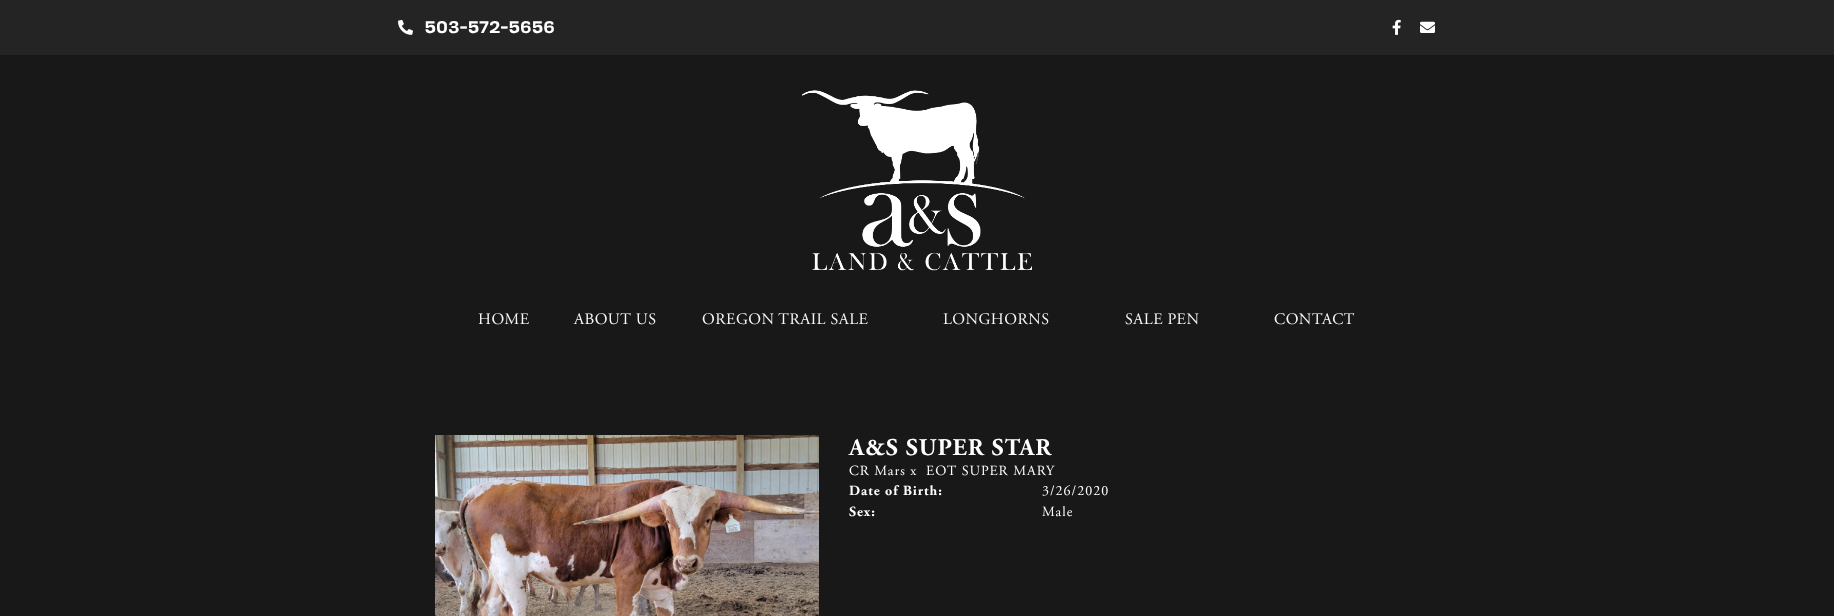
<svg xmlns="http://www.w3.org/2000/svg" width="1834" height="616">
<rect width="100%" height="100%" fill="#181818"/>
<rect width="1834" height="55" fill="#242424"/>
<image x="398" y="19" width="15" height="16" href="media/1.png"/>
<text x="425" y="33" style="font-family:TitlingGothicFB;font-size:15px;font-weight:500;letter-spacing:1px;fill:#fff">503-572-5656</text>
<image x="1392" y="19" width="9" height="16" href="media/2.png"/>
<image x="1420" y="21" width="15" height="12" href="media/3.png"/>
<image x="802" y="90" width="231" height="181" href="media/4.png"/>
<text x="478" y="324" style="font-family:Adobe Garamond;font-size:16px;letter-spacing:0.5px;fill:#f8f8f8">HOME</text>
<text x="574" y="324" style="font-family:Adobe Garamond;font-size:16px;letter-spacing:0.5px;fill:#f8f8f8">ABOUT US</text>
<text x="702" y="324" style="font-family:Adobe Garamond;font-size:16px;letter-spacing:0.5px;fill:#f8f8f8">OREGON TRAIL SALE</text>
<text x="943" y="324" style="font-family:Adobe Garamond;font-size:16px;letter-spacing:0.5px;fill:#f8f8f8">LONGHORNS</text>
<text x="1125" y="324" style="font-family:Adobe Garamond;font-size:16px;letter-spacing:0.5px;fill:#f8f8f8">SALE PEN</text>
<text x="1274" y="324" style="font-family:Adobe Garamond;font-size:16px;letter-spacing:0.5px;fill:#f8f8f8">CONTACT</text>
<image x="435" y="435" width="384" height="181" href="media/5.png"/>
<text x="849" y="455" style="font-family:Adobe Garamond;font-size:24px;font-weight:bold;letter-spacing:1px;fill:#fff">A&amp;S SUPER STAR</text>
<text x="849" y="475" style="font-family:Adobe Garamond;font-size:14px;letter-spacing:1px;fill:#fff">CR Mars x</text>
<text x="926" y="475" style="font-family:Adobe Garamond;font-size:14px;letter-spacing:1px;fill:#fff">EOT SUPER MARY</text>
<text x="849" y="495" style="font-family:Adobe Garamond;font-size:14px;font-weight:bold;letter-spacing:1px;fill:#fff">Date of Birth:</text>
<text x="1042" y="495" style="font-family:Adobe Garamond;font-size:14px;letter-spacing:1px;fill:#fff">3/26/2020</text>
<text x="849" y="516" style="font-family:Adobe Garamond;font-size:14px;font-weight:bold;letter-spacing:1px;fill:#fff">Sex:</text>
<text x="1042" y="516" style="font-family:Adobe Garamond;font-size:14px;letter-spacing:1px;fill:#fff">Male</text>
</svg>
